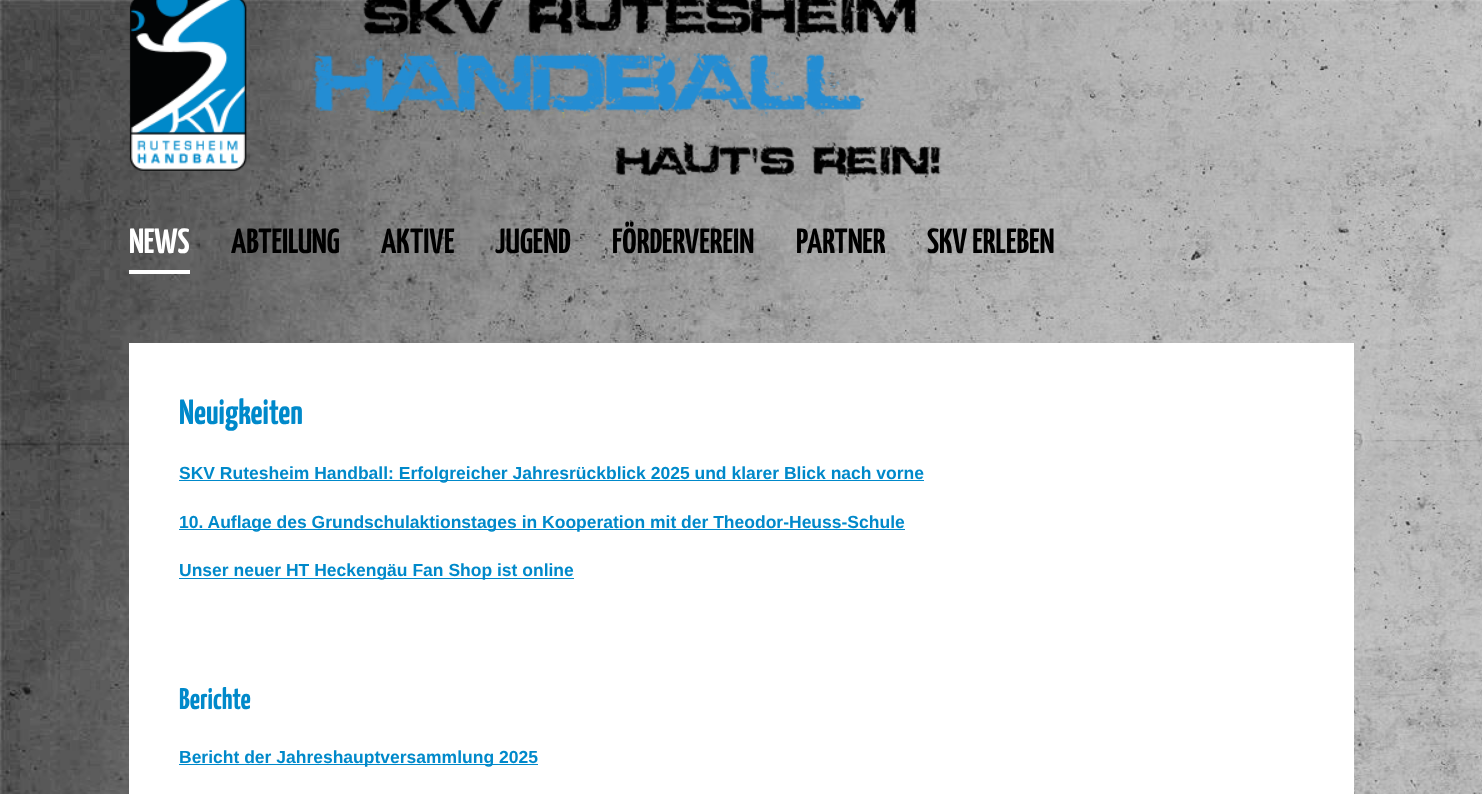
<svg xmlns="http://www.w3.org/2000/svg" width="1482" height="794">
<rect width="100%" height="100%" fill="#fff"/>
<image x="0" y="0" width="1482" height="794" href="media/1.png"/>
<image x="129" y="0" width="813" height="183" href="media/2.png"/>
<rect x="129" y="270" width="61" height="4" fill="#fff"/>
<text x="129" y="253" style="font-family:Yanone Kaffeesatz;font-size:35px;font-weight:200;fill:#fff">NEWS</text>
<text x="231" y="253" style="font-family:Yanone Kaffeesatz;font-size:35px;font-weight:200;fill:#000">ABTEILUNG</text>
<text x="381" y="253" style="font-family:Yanone Kaffeesatz;font-size:35px;font-weight:200;fill:#000">AKTIVE</text>
<text x="495" y="253" style="font-family:Yanone Kaffeesatz;font-size:35px;font-weight:200;fill:#000">JUGEND</text>
<text x="612" y="253" style="font-family:Yanone Kaffeesatz;font-size:35px;font-weight:200;fill:#000">FÖRDERVEREIN</text>
<text x="796" y="253" style="font-family:Yanone Kaffeesatz;font-size:35px;font-weight:200;fill:#000">PARTNER</text>
<text x="927" y="253" style="font-family:Yanone Kaffeesatz;font-size:35px;font-weight:200;fill:#000">SKV ERLEBEN</text>
<rect x="129" y="343" width="1225" height="451" fill="#fff"/>
<text x="179" y="424" style="font-family:Yanone Kaffeesatz;font-size:35px;font-weight:200;fill:#0089ca">Neuigkeiten</text>
<rect x="179" y="480" width="745" height="1" fill="#0089ca"/>
<text x="179" y="479" style="font-family:Liberation Sans;font-size:17.5px;font-weight:bold;fill:#0089ca">SKV Rutesheim Handball: Erfolgreicher Jahresrückblick 2025 und klarer Blick nach vorne</text>
<rect x="179" y="529" width="726" height="1" fill="#0089ca"/>
<text x="179" y="528" style="font-family:Liberation Sans;font-size:17.5px;font-weight:bold;fill:#0089ca">10. Auflage des Grundschulaktionstages in Kooperation mit der Theodor-Heuss-Schule</text>
<rect x="179" y="578" width="395" height="1" fill="#0089ca"/>
<text x="179" y="576" style="font-family:Liberation Sans;font-size:17.5px;font-weight:bold;fill:#0089ca">Unser neuer HT Heckengäu Fan Shop ist online</text>
<text x="179" y="709" style="font-family:Yanone Kaffeesatz;font-size:30px;font-weight:200;fill:#0089ca">Berichte</text>
<rect x="179" y="764" width="359" height="1" fill="#0089ca"/>
<text x="179" y="763" style="font-family:Liberation Sans;font-size:17.5px;font-weight:bold;fill:#0089ca">Bericht der Jahreshauptversammlung 2025</text>
</svg>
